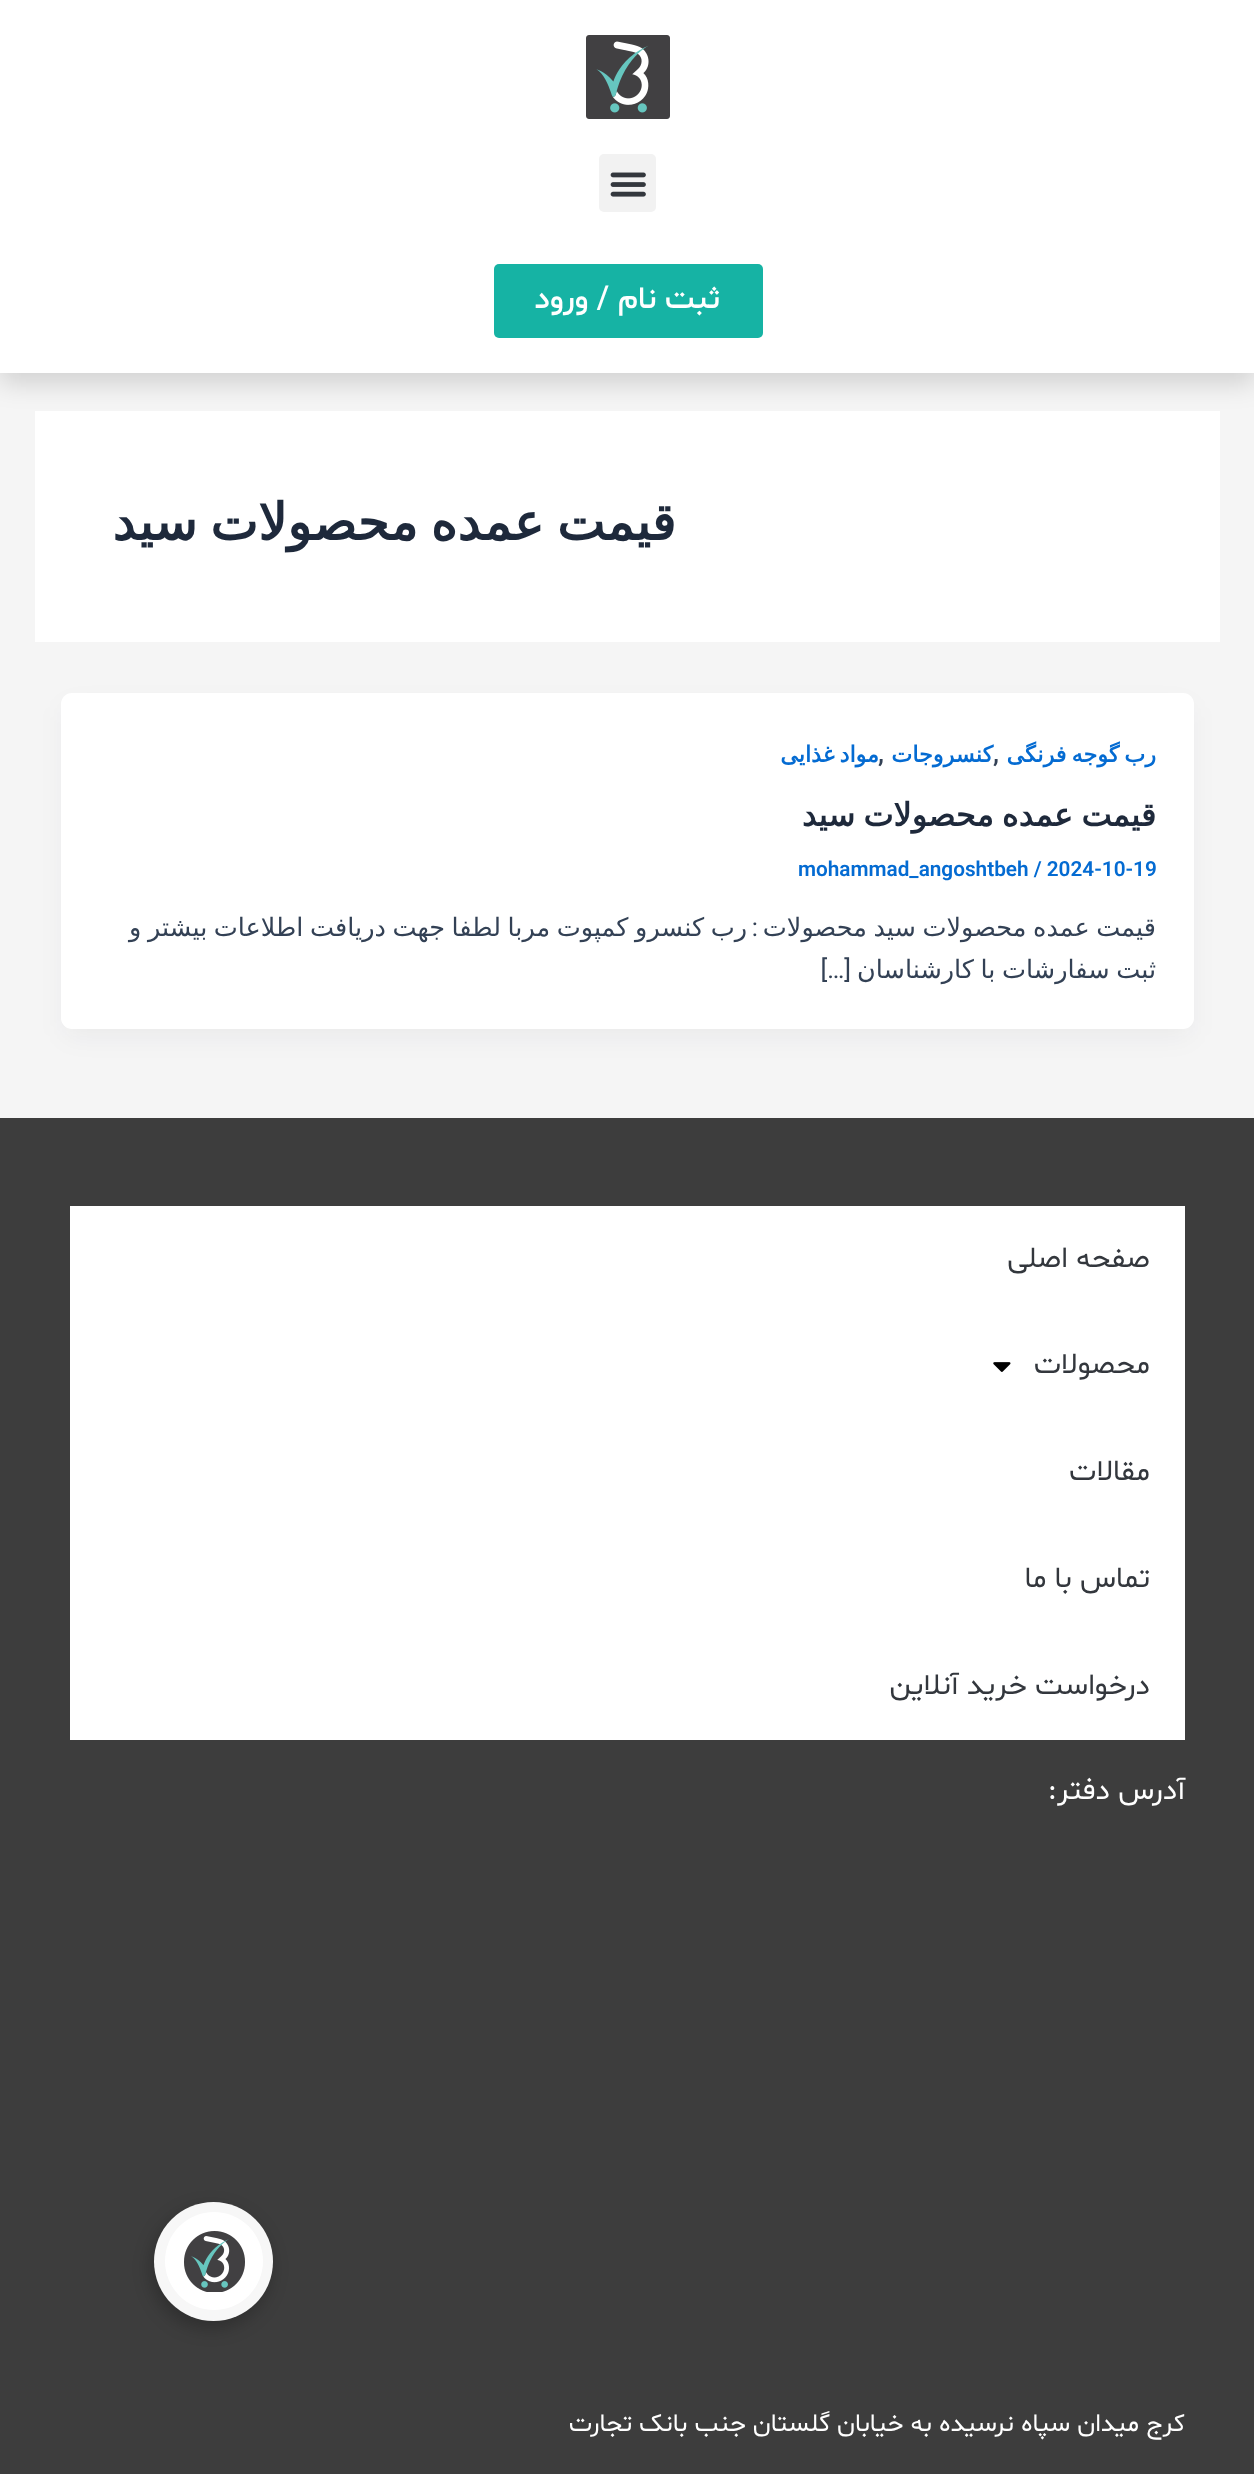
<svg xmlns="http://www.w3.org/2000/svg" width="1254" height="2474">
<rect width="100%" height="100%" fill="#f5f5f5"/>
<rect x="35" y="411" width="1185" height="231" fill="#fff"/>
<rect y="11" width="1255" height="372" fill="#00000026" filter="blur(13px)"/>
<rect width="1254" height="373" fill="#fff"/>
<image x="586" y="35" width="84" height="84" href="media/1.png"/>
<rect x="599" y="154" width="57" height="58" rx="5" fill="#f2f2f2"/>
<image x="610" y="172" width="36" height="25" href="media/2.png"/>
<rect x="494" y="264" width="269" height="74" rx="5" fill="#16b3a4"/>
<text x="720" y="308" style="font-family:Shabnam;font-size:31.5px;font-weight:500;direction:rtl;fill:#fff">ثبت نام / ورود</text>
<text x="676" y="540" word-spacing="-3.5" style="font-family:DejaVu Sans;font-size:51px;font-weight:bold;direction:rtl;fill:#1e293b">قیمت عمده محصولات سید</text>
<rect x="65" y="707" width="1125" height="329" rx="7" fill="#1018280d" filter="blur(13px)"/>
<rect x="61" y="693" width="1133" height="336" rx="11" fill="#fff"/>
<text x="1156" y="762" word-spacing="-2" style="font-family:DejaVu Sans;font-size:22.25px;font-weight:bold;direction:rtl;fill:#046bd2">رب گوجه فرنگی</text>
<text x="993" y="762" style="font-family:Roboto;font-size:25.5px;font-weight:600;fill:#334155">,</text>
<text x="993" y="762" style="font-family:DejaVu Sans;font-size:22.25px;font-weight:bold;direction:rtl;fill:#046bd2">کنسروجات</text>
<text x="878" y="762" style="font-family:Roboto;font-size:25.5px;font-weight:600;fill:#334155">,</text>
<text x="879" y="762" word-spacing="-2" style="font-family:DejaVu Sans;font-size:22.25px;font-weight:bold;direction:rtl;fill:#046bd2">مواد غذایی</text>
<text x="1156" y="826" word-spacing="-2" style="font-family:DejaVu Sans;font-size:32px;font-weight:bold;direction:rtl;fill:#1e293b">قیمت عمده محصولات سید</text>
<text x="798" y="876" style="font-family:Roboto;font-size:20.75px;font-weight:600;fill:#046bd2">mohammad_angoshtbeh / 2024-10-19</text>
<text x="1156" y="936" word-spacing="-1.5" style="font-family:DejaVu Sans;font-size:25.5px;direction:rtl;fill:#334155">قیمت عمده محصولات سید محصولات</text>
<text x="747" y="936" word-spacing="-1.5" style="font-family:DejaVu Sans;font-size:25.5px;direction:rtl;fill:#334155">رب کنسرو کمپوت مربا لطفا جهت دریافت اطلاعات بیشتر و</text>
<text x="758" y="936" style="font-family:Roboto;font-size:25.5px;direction:rtl;fill:#334155">:</text>
<text x="1156" y="978" word-spacing="-1.5" style="font-family:DejaVu Sans;font-size:25.5px;direction:rtl;fill:#334155">ثبت سفارشات با کارشناسان</text>
<text x="851" y="978" style="font-family:Roboto;font-size:25.5px;direction:rtl;fill:#334155">[…]</text>
<rect y="1118" width="1254" height="1356" fill="#3d3d3d"/>
<rect x="70" y="1206" width="1115" height="534" fill="#fff"/>
<text x="1150" y="1267" style="font-family:Shabnam;font-size:29.75px;direction:rtl;fill:#33373d">صفحه اصلی</text>
<text x="1150" y="1373" style="font-family:Shabnam;font-size:29.75px;direction:rtl;fill:#33373d">محصولات</text>
<image x="993" y="1362" width="18" height="10" href="media/3.png"/>
<text x="1150" y="1480" style="font-family:Shabnam;font-size:29.75px;direction:rtl;fill:#33373d">مقالات</text>
<text x="1150" y="1587" style="font-family:Shabnam;font-size:29.75px;direction:rtl;fill:#33373d">تماس با ما</text>
<text x="1150" y="1694" style="font-family:Shabnam;font-size:29.75px;direction:rtl;fill:#33373d">درخواست خرید آنلاین</text>
<text x="1185" y="1799" style="font-family:Shabnam;font-size:29.75px;direction:rtl;fill:#fff">آدرس دفتر:</text>
<text x="1185" y="2431" style="font-family:Shabnam;font-size:25.5px;direction:rtl;fill:#fff">کرج میدان سپاه نرسیده به خیابان گلستان جنب بانک تجارت</text>
<rect x="151" y="2209" width="119" height="119" rx="59.5" fill="#0000003d" filter="blur(9px)"/>
<circle cx="213.5" cy="2261.5" r="59.5" fill="#f7f7f7"/>
<circle cx="214" cy="2261" r="49" fill="#fff"/>
<image x="184" y="2231" width="61" height="61" href="media/4.png"/>
</svg>
